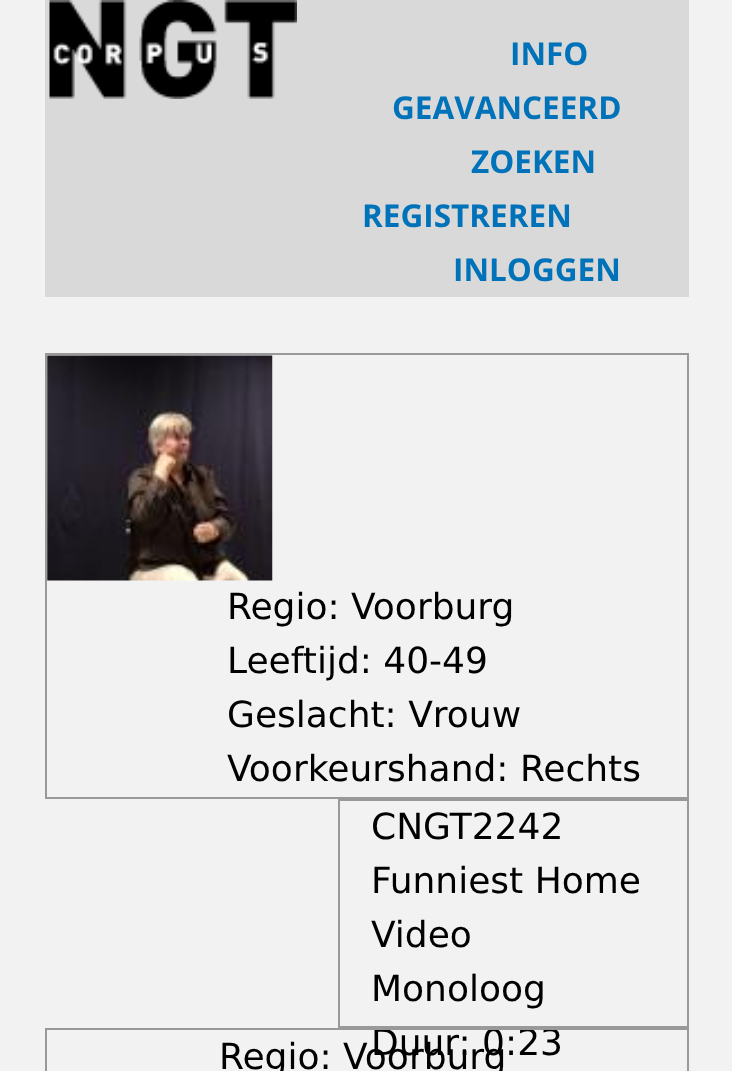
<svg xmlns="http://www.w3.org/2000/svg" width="732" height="1071">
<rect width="100%" height="100%" fill="#f2f2f2"/>
<rect x="45" width="644" height="297" fill="#d9d9d9"/>
<image x="49" y="0" width="248" height="99" href="media/1.png"/>
<text x="510" y="65" style="font-family:Open Sans;font-size:31.5px;font-weight:bold;fill:#0072b9">INFO</text>
<text x="392" y="119" style="font-family:Open Sans;font-size:31.5px;font-weight:bold;fill:#0072b9">GEAVANCEERD</text>
<text x="471" y="173" style="font-family:Open Sans;font-size:31.5px;font-weight:bold;fill:#0072b9">ZOEKEN</text>
<text x="362" y="227" style="font-family:Open Sans;font-size:31.5px;font-weight:bold;fill:#0072b9">REGISTREREN</text>
<text x="453" y="281" style="font-family:Open Sans;font-size:31.5px;font-weight:bold;fill:#0072b9">INLOGGEN</text>
<rect x="46" y="354" width="642" height="444" fill="none" stroke="#999" stroke-width="2"/>
<image x="47" y="355" width="226" height="226" href="media/2.png"/>
<text x="227" y="619" style="font-family:DejaVu Sans;font-size:36px;fill:#000">Regio: Voorburg</text>
<text x="227" y="673" style="font-family:DejaVu Sans;font-size:36px;fill:#000">Leeftijd: 40-49</text>
<text x="227" y="727" style="font-family:DejaVu Sans;font-size:36px;fill:#000">Geslacht: Vrouw</text>
<text x="227" y="781" style="font-family:DejaVu Sans;font-size:36px;fill:#000">Voorkeurshand: Rechts</text>
<text x="371" y="1055" style="font-family:DejaVu Sans;font-size:36px;fill:#000">Duur: 0:23</text>
<rect x="46" y="1029" width="642" height="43" fill="none" stroke="#999" stroke-width="2"/>
<text x="219" y="1069" style="font-family:DejaVu Sans;font-size:36px;fill:#000">Regio: Voorburg</text>
<rect x="339" y="800" width="349" height="227" fill="none" stroke="#999" stroke-width="2"/>
<text x="371" y="839" style="font-family:DejaVu Sans;font-size:36px;fill:#000">CNGT2242</text>
<text x="371" y="893" style="font-family:DejaVu Sans;font-size:36px;fill:#000">Funniest Home</text>
<text x="371" y="947" style="font-family:DejaVu Sans;font-size:36px;fill:#000">Video</text>
<text x="371" y="1001" style="font-family:DejaVu Sans;font-size:36px;fill:#000">Monoloog</text>
</svg>
